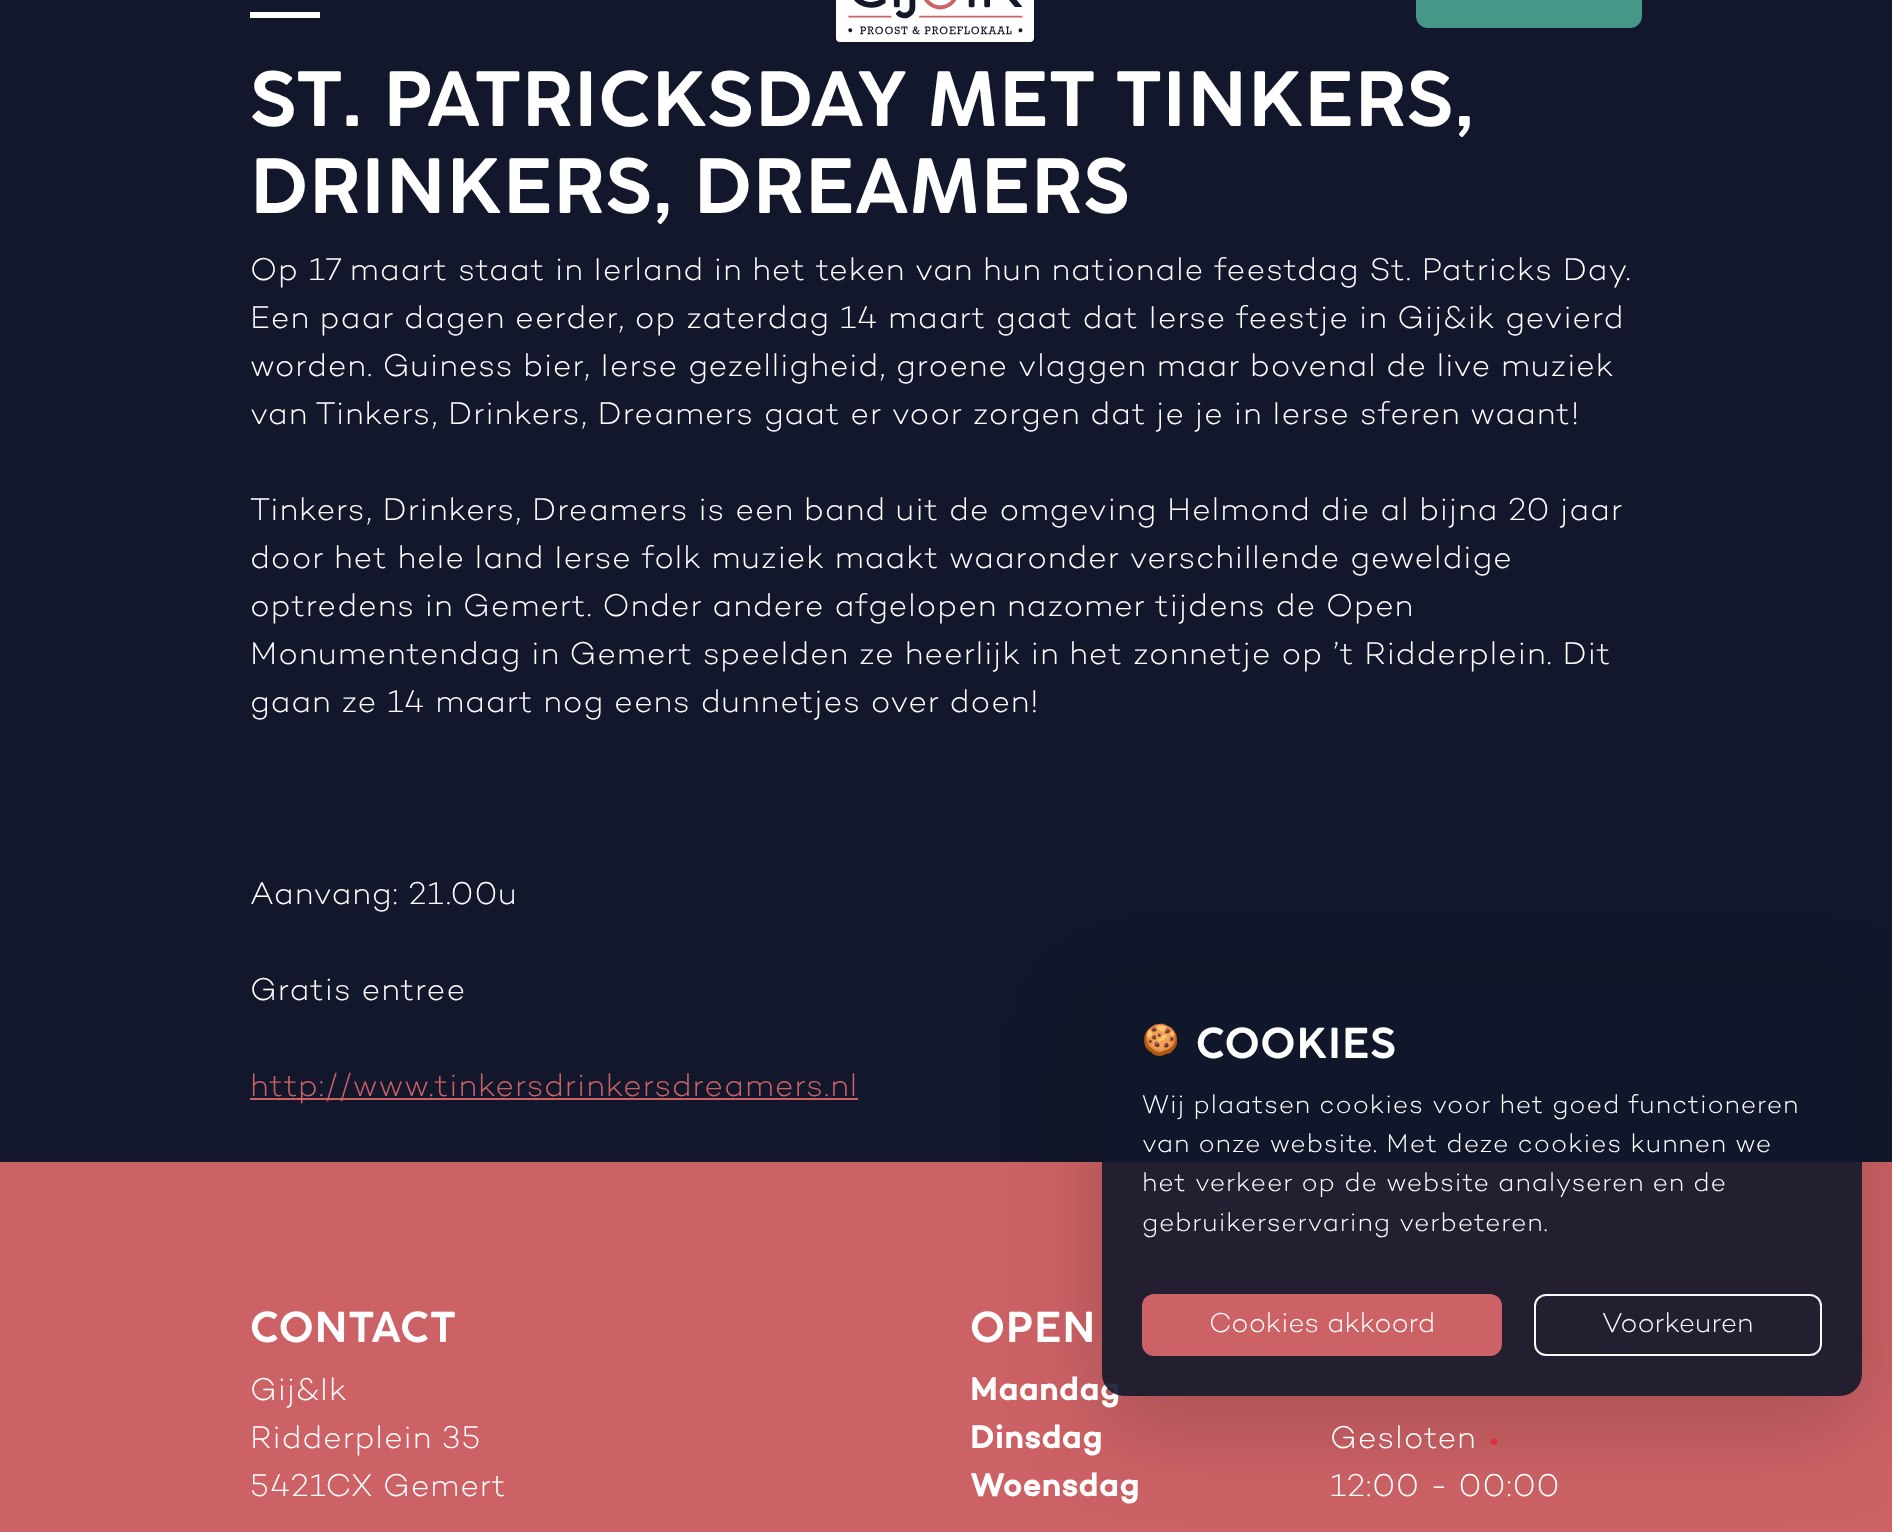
<svg xmlns="http://www.w3.org/2000/svg" width="1892" height="1532">
<defs>
<clipPath id="clip1"><path d="M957 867h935v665h-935zm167 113h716c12 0 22 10 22 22v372c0 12-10 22-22 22h-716c-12 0-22-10-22-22v-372c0-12 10-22 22-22z" clip-rule="evenodd"/></clipPath>
</defs>
<rect width="100%" height="100%" fill="#12172b"/>
<rect x="250" y="12" width="70" height="6" fill="#fff"/>
<image x="836" y="0" width="198" height="42" href="media/1.png"/>
<rect x="1416" y="-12" width="226" height="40" rx="12" fill="#459787"/>
<text x="250" y="126" style="font-family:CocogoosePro;font-size:72.4px;font-weight:300;letter-spacing:1px;fill:#fff">ST. PATRICKSDAY MET TINKERS,</text>
<text x="250" y="213" style="font-family:CocogoosePro;font-size:72.4px;font-weight:300;letter-spacing:1px;fill:#fff">DRINKERS, DREAMERS</text>
<text x="250" y="280" style="font-family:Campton;font-size:32px;font-weight:300;letter-spacing:1px;fill:#fff">Op 17 maart staat in Ierland in het teken van hun nationale feestdag St. Patricks Day.</text>
<text x="250" y="328" style="font-family:Campton;font-size:32px;font-weight:300;letter-spacing:1px;fill:#fff">Een paar dagen eerder, op zaterdag 14 maart gaat dat Ierse feestje in Gij&amp;ik gevierd</text>
<text x="250" y="376" style="font-family:Campton;font-size:32px;font-weight:300;letter-spacing:1px;fill:#fff">worden. Guiness bier, Ierse gezelligheid, groene vlaggen maar bovenal de live muziek</text>
<text x="250" y="424" style="font-family:Campton;font-size:32px;font-weight:300;letter-spacing:1px;fill:#fff">van Tinkers, Drinkers, Dreamers gaat er voor zorgen dat je je in Ierse sferen waant!</text>
<text x="250" y="520" style="font-family:Campton;font-size:32px;font-weight:300;letter-spacing:1px;fill:#fff">Tinkers, Drinkers, Dreamers is een band uit de omgeving Helmond die al bijna 20 jaar</text>
<text x="250" y="568" style="font-family:Campton;font-size:32px;font-weight:300;letter-spacing:1px;fill:#fff">door het hele land Ierse folk muziek maakt waaronder verschillende geweldige</text>
<text x="250" y="616" style="font-family:Campton;font-size:32px;font-weight:300;letter-spacing:1px;fill:#fff">optredens in Gemert. Onder andere afgelopen nazomer tijdens de Open</text>
<text x="250" y="664" style="font-family:Campton;font-size:32px;font-weight:300;letter-spacing:1px;fill:#fff">Monumentendag in Gemert speelden ze heerlijk in het zonnetje op ’t Ridderplein. Dit</text>
<text x="250" y="712" style="font-family:Campton;font-size:32px;font-weight:300;letter-spacing:1px;fill:#fff">gaan ze 14 maart nog eens dunnetjes over doen!</text>
<text x="250" y="904" style="font-family:Campton;font-size:32px;font-weight:300;letter-spacing:1px;fill:#fff">Aanvang: 21.00u</text>
<text x="250" y="1000" style="font-family:Campton;font-size:32px;font-weight:300;letter-spacing:1px;fill:#fff">Gratis entree</text>
<rect x="250" y="1098" width="608" height="2" fill="#cd6266"/>
<text x="250" y="1096" style="font-family:Campton;font-size:32px;font-weight:300;letter-spacing:1px;fill:#cd6266">http://www.tinkersdrinkersdreamers.nl</text>
<rect y="1162" width="1892" height="370" fill="#cd6266"/>
<g clip-path="url(#clip1)">
<rect x="1102" y="1012" width="760" height="416" rx="22" fill="#0000002e" filter="blur(48px)"/>
</g>
<text x="970" y="1400" style="font-family:Campton;font-size:32px;font-weight:bold;letter-spacing:1px;fill:#fff">Maandag</text>
<rect x="1102" y="980" width="760" height="416" rx="22" fill="#12172be6"/>
<text x="1142" y="1050" style="font-family:Noto Color Emoji;font-size:30px;letter-spacing:1px;fill:#fff">🍪</text>
<text x="1196" y="1058" style="font-family:CocogoosePro;font-size:40px;font-weight:300;letter-spacing:1px;fill:#fff">COOKIES</text>
<text x="1142" y="1113" style="font-family:Campton;font-size:26.25px;font-weight:300;letter-spacing:1px;fill:#fff">Wij plaatsen cookies voor het goed functioneren</text>
<text x="1142" y="1152" style="font-family:Campton;font-size:26.25px;font-weight:300;letter-spacing:1px;fill:#fff">van onze website. Met deze cookies kunnen we</text>
<text x="1142" y="1191" style="font-family:Campton;font-size:26.25px;font-weight:300;letter-spacing:1px;fill:#fff">het verkeer op de website analyseren en de</text>
<text x="1142" y="1231" style="font-family:Campton;font-size:26.25px;font-weight:300;letter-spacing:1px;fill:#fff">gebruikerservaring verbeteren.</text>
<rect x="1142" y="1294" width="360" height="62" rx="12" fill="#cd6266"/>
<text x="1209" y="1332" style="font-family:Campton;font-size:28px;font-weight:300;fill:#fff">Cookies akkoord</text>
<rect x="1535" y="1295" width="286" height="60" rx="11" fill="none" stroke="#f8f9fa" stroke-width="2"/>
<text x="1602" y="1332" style="font-family:Campton;font-size:28px;font-weight:300;fill:#f8f9fa">Voorkeuren</text>
<text x="250" y="1342" style="font-family:CocogoosePro;font-size:40px;font-weight:300;letter-spacing:1px;fill:#fff">CONTACT</text>
<text x="250" y="1400" style="font-family:Campton;font-size:32px;font-weight:300;letter-spacing:1px;fill:#fff">Gij&amp;Ik</text>
<text x="250" y="1448" style="font-family:Campton;font-size:32px;font-weight:300;letter-spacing:1px;fill:#fff">Ridderplein 35</text>
<text x="250" y="1496" style="font-family:Campton;font-size:32px;font-weight:300;letter-spacing:1px;fill:#fff">5421CX Gemert</text>
<text x="970" y="1342" style="font-family:CocogoosePro;font-size:40px;font-weight:300;letter-spacing:1px;fill:#fff">OPEN</text>
<text x="970" y="1448" style="font-family:Campton;font-size:32px;font-weight:bold;letter-spacing:1px;fill:#fff">Dinsdag</text>
<text x="1330" y="1448" style="font-family:Campton;font-size:32px;font-weight:300;letter-spacing:1px;fill:#fff">Gesloten</text>
<text x="1489" y="1446" style="font-family:Liberation Sans;font-size:16px;letter-spacing:1px;fill:#dc2f43">●</text>
<text x="970" y="1496" style="font-family:Campton;font-size:32px;font-weight:bold;letter-spacing:1px;fill:#fff">Woensdag</text>
<text x="1330" y="1496" style="font-family:Campton;font-size:32px;font-weight:300;letter-spacing:1px;fill:#fff">12:00 - 00:00</text>
</svg>
